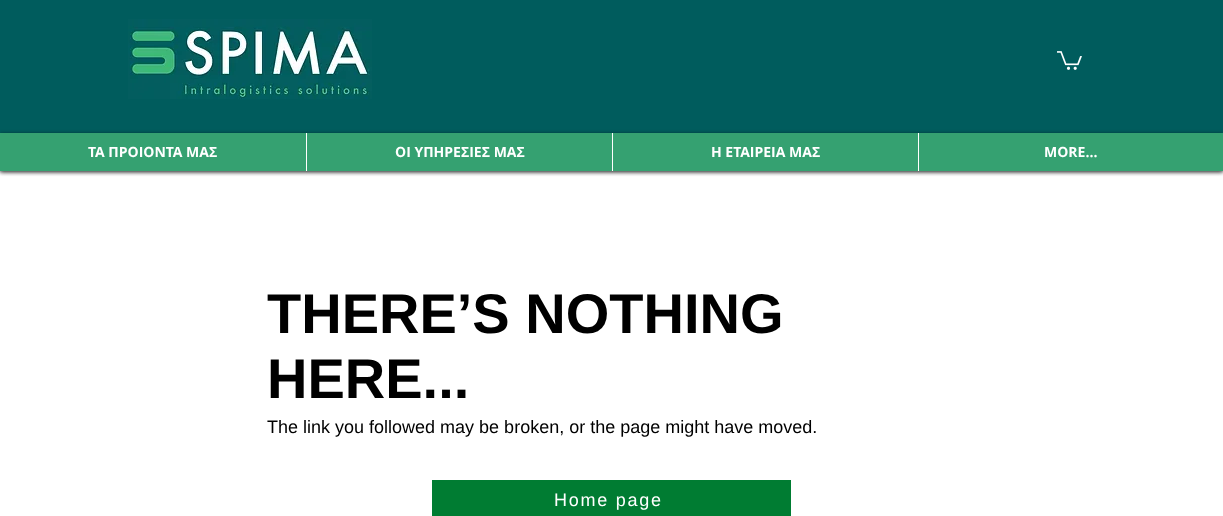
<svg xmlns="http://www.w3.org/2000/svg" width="1223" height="516">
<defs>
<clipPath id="clip1"><rect x="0" y="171" width="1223" height="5"/></clipPath>
</defs>
<rect width="100%" height="100%" fill="#005c5d"/>
<rect y="171" width="1223" height="345" fill="#fff"/>
<g clip-path="url(#clip1)">
<rect width="1223" height="171" fill="#000000b3" filter="blur(2.5px)"/>
</g>
<image x="128" y="19" width="244" height="80" href="media/1.png"/>
<image x="1057" y="51" width="25" height="19" href="media/2.png"/>
<rect y="134" width="1223" height="38" fill="#00000099" filter="blur(2px)"/>
<rect y="133" width="1223" height="38" fill="#35a171"/>
<text x="88" y="157" style="font-family:Open Sans;font-size:14px;font-weight:bold;fill:#fff">ΤΑ ΠΡΟΙΟΝΤΑ ΜΑΣ</text>
<rect x="306" y="133" width="1" height="38" fill="#fff"/>
<text x="395" y="157" style="font-family:Open Sans;font-size:14px;font-weight:bold;fill:#fff">ΟΙ ΥΠΗΡΕΣΙΕΣ ΜΑΣ</text>
<rect x="612" y="133" width="1" height="38" fill="#fff"/>
<text x="711" y="157" style="font-family:Open Sans;font-size:14px;font-weight:bold;fill:#fff">Η ΕΤΑΙΡΕΙΑ ΜΑΣ</text>
<rect x="918" y="133" width="1" height="38" fill="#fff"/>
<text x="1044" y="157" style="font-family:Open Sans;font-size:14px;font-weight:bold;fill:#fff">MORE...</text>
<text x="267" y="333" style="font-family:Liberation Sans;font-size:56px;font-weight:bold;fill:#000">THERE’S NOTHING</text>
<text x="267" y="398" style="font-family:Liberation Sans;font-size:56px;font-weight:bold;fill:#000">HERE...</text>
<text x="267" y="433" style="font-family:Liberation Sans;font-size:18px;fill:#000">The link you followed may be broken, or the page might have moved.</text>
<rect x="432" y="480" width="359" height="36" fill="#007c32"/>
<text x="554" y="506" style="font-family:Liberation Sans;font-size:18px;letter-spacing:1.75px;fill:#fff">Home page</text>
</svg>
